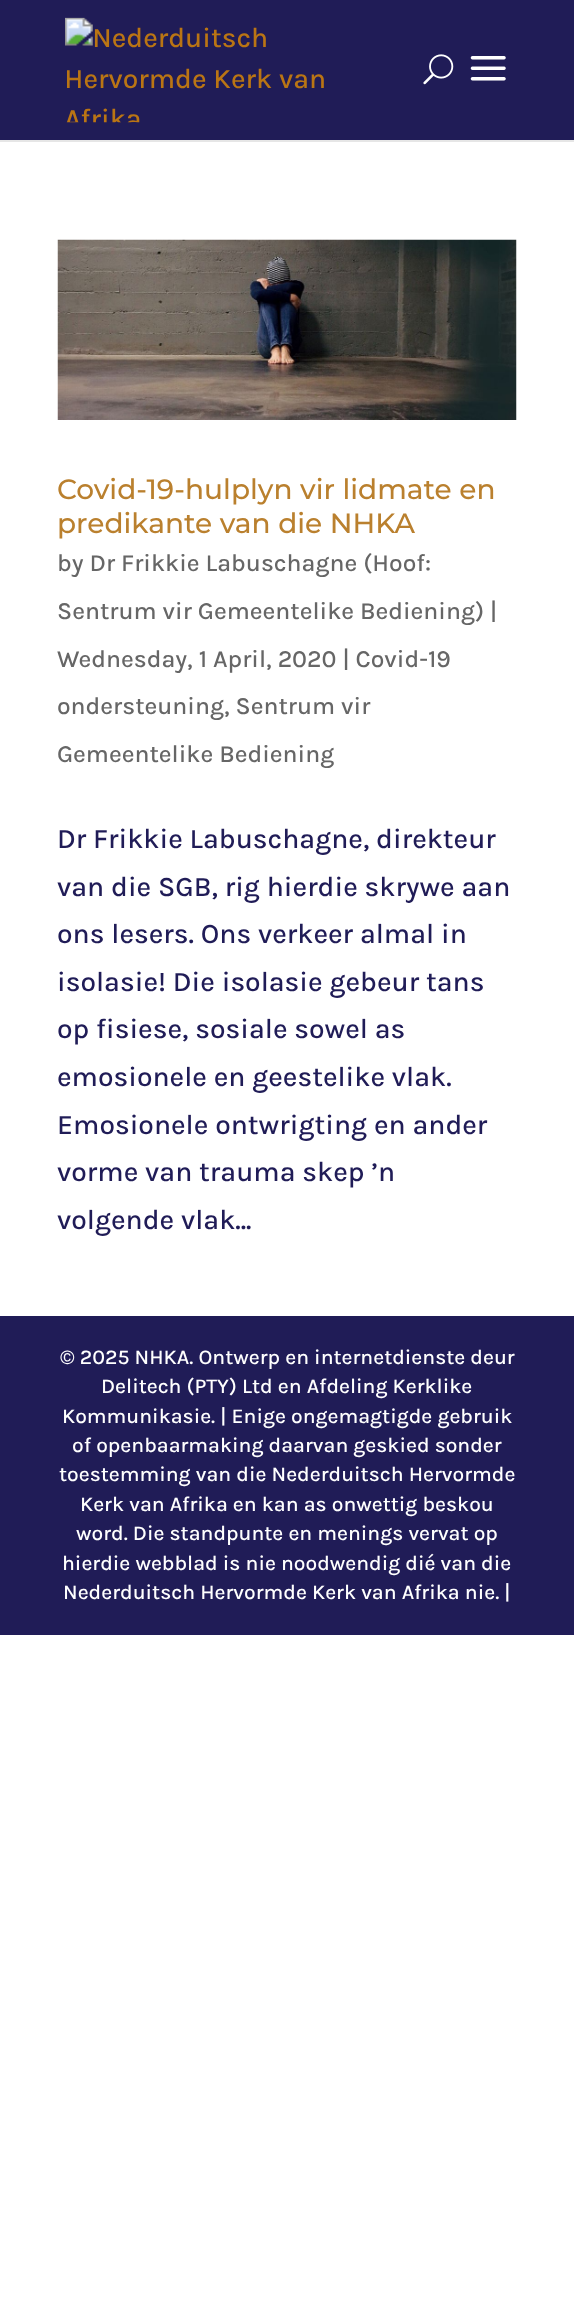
<svg xmlns="http://www.w3.org/2000/svg" width="574" height="2306">
<rect width="100%" height="100%" fill="#fff"/>
<rect y="140" width="574" height="2" fill="#e6e6e6"/>
<rect width="574" height="140" fill="#201c57"/>
<image x="65" y="17" width="259" height="106" href="media/1.png"/>
<image x="423" y="54" width="31" height="31" href="media/2.png"/>
<image x="470" y="56" width="36" height="25" href="media/3.png"/>
<image x="57" y="239" width="460" height="181" href="media/4.png"/>
<text x="57" y="499" style="font-family:Montserrat;font-size:28px;font-weight:500;fill:#ba802e">Covid-19-hulplyn vir lidmate en</text>
<text x="57" y="533" style="font-family:Montserrat;font-size:28px;font-weight:500;fill:#ba802e">predikante van die NHKA</text>
<text x="57" y="571" style="font-family:Karla;font-size:24.5px;font-weight:500;fill:#666">by Dr Frikkie Labuschagne (Hoof:</text>
<text x="57" y="619" style="font-family:Karla;font-size:24.5px;font-weight:500;fill:#666">Sentrum vir Gemeentelike Bediening) |</text>
<text x="57" y="667" style="font-family:Karla;font-size:24.5px;font-weight:500;fill:#666">Wednesday, 1 April, 2020 | Covid-19</text>
<text x="57" y="714" style="font-family:Karla;font-size:24.5px;font-weight:500;fill:#666">ondersteuning, Sentrum vir</text>
<text x="57" y="762" style="font-family:Karla;font-size:24.5px;font-weight:500;fill:#666">Gemeentelike Bediening</text>
<text x="57" y="848" style="font-family:Karla;font-size:28px;font-weight:500;fill:#201c57">Dr Frikkie Labuschagne, direkteur</text>
<text x="57" y="896" style="font-family:Karla;font-size:28px;font-weight:500;fill:#201c57">van die SGB, rig hierdie skrywe aan</text>
<text x="57" y="943" style="font-family:Karla;font-size:28px;font-weight:500;fill:#201c57">ons lesers. Ons verkeer almal in</text>
<text x="57" y="991" style="font-family:Karla;font-size:28px;font-weight:500;fill:#201c57">isolasie! Die isolasie gebeur tans</text>
<text x="57" y="1038" style="font-family:Karla;font-size:28px;font-weight:500;fill:#201c57">op fisiese, sosiale sowel as</text>
<text x="57" y="1086" style="font-family:Karla;font-size:28px;font-weight:500;fill:#201c57">emosionele en geestelike vlak.</text>
<text x="57" y="1134" style="font-family:Karla;font-size:28px;font-weight:500;fill:#201c57">Emosionele ontwrigting en ander</text>
<text x="57" y="1181" style="font-family:Karla;font-size:28px;font-weight:500;fill:#201c57">vorme van trauma skep ’n</text>
<text x="57" y="1229" style="font-family:Karla;font-size:28px;font-weight:500;fill:#201c57">volgende vlak...</text>
<rect y="1316" width="574" height="319" fill="#201c57"/>
<text x="60" y="1364" style="font-family:Karla;font-size:21px;font-weight:500;fill:#fff">© 2025 NHKA. Ontwerp en internetdienste deur</text>
<text x="101" y="1393" style="font-family:Karla;font-size:21px;font-weight:500;fill:#fff">Delitech (PTY) Ltd en Afdeling Kerklike</text>
<text x="62" y="1423" style="font-family:Karla;font-size:21px;font-weight:500;fill:#fff">Kommunikasie. | Enige ongemagtigde gebruik</text>
<text x="72" y="1452" style="font-family:Karla;font-size:21px;font-weight:500;fill:#fff">of openbaarmaking daarvan geskied sonder</text>
<text x="59" y="1481" style="font-family:Karla;font-size:21px;font-weight:500;fill:#fff">toestemming van die Nederduitsch Hervormde</text>
<text x="80" y="1511" style="font-family:Karla;font-size:21px;font-weight:500;fill:#fff">Kerk van Afrika en kan as onwettig beskou</text>
<text x="76" y="1540" style="font-family:Karla;font-size:21px;font-weight:500;fill:#fff">word. Die standpunte en menings vervat op</text>
<text x="62" y="1570" style="font-family:Karla;font-size:21px;font-weight:500;fill:#fff">hierdie webblad is nie noodwendig dié van die</text>
<text x="63" y="1599" style="font-family:Karla;font-size:21px;font-weight:500;fill:#fff">Nederduitsch Hervormde Kerk van Afrika nie. |</text>
</svg>
